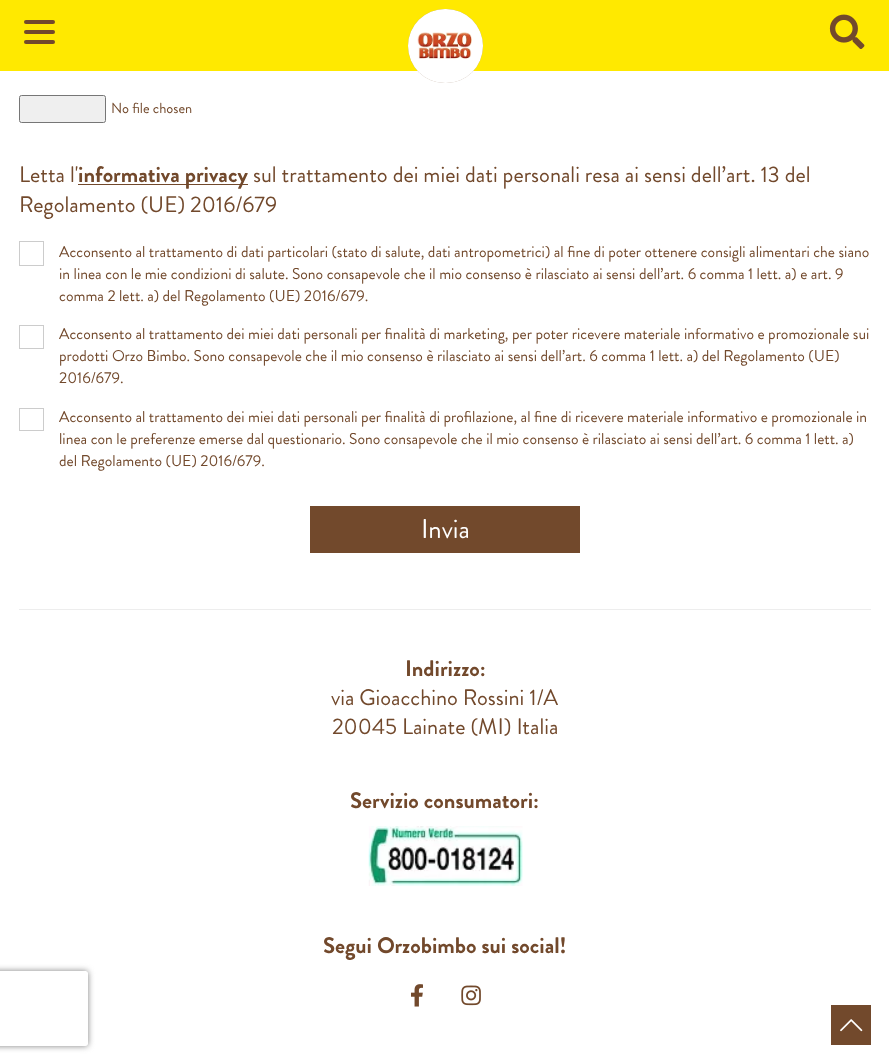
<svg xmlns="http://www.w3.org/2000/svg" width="889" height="1063">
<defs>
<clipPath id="clip1"><path d="M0 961h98v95h-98zm-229.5 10h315c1.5 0 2.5 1 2.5 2.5v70c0 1.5-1 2.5-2.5 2.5h-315c-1.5 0-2.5-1-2.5-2.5v-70c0-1.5 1-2.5 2.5-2.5z" clip-rule="evenodd"/></clipPath>
</defs>
<rect width="100%" height="100%" fill="#fff"/>
<rect width="889" height="71" fill="#ffe900"/>
<rect x="408" y="9" width="75" height="74" rx="37" fill="#72492c80" filter="blur(0.5px)"/>
<rect x="408" y="9" width="75" height="74" rx="37" fill="#fff"/>
<image x="417" y="32" width="55" height="27" href="media/1.png"/>
<rect x="24" y="30" width="31" height="4" rx="2" fill="#72492c"/>
<rect x="24" y="20" width="31" height="4" rx="2" fill="#72492c"/>
<rect x="24" y="40" width="31" height="4" rx="2" fill="#72492c"/>
<image x="829" y="14" width="36" height="35" href="media/2.png"/>
<rect x="19.5" y="95.5" width="86" height="27" rx="2" fill="#efefef" stroke="#767676"/>
<text x="111" y="113" style="font-family:Brandon Grotesque;font-size:14.5px;fill:#72492c">No file chosen</text>
<text x="19" y="182" style="font-family:Brandon Grotesque;font-size:22.4px;fill:#72492c">Letta l'</text>
<rect x="78" y="184" width="170" height="1" fill="#72492c"/>
<text x="78" y="182" style="font-family:Brandon Grotesque;font-size:22.4px;font-weight:bold;fill:#72492c">informativa privacy</text>
<text x="253" y="182" style="font-family:Brandon Grotesque;font-size:22.4px;fill:#72492c">sul trattamento dei miei dati personali resa ai sensi dell’art. 13 del</text>
<text x="19" y="212" style="font-family:Brandon Grotesque;font-size:22.4px;fill:#72492c">Regolamento (UE) 2016/679</text>
<rect x="19.5" y="241.5" width="24" height="24" fill="none" stroke="#ccc"/>
<text x="59" y="257" style="font-family:Brandon Grotesque;font-size:15.68px;fill:#72492c">Acconsento al trattamento di dati particolari (stato di salute, dati antropometrici) al fine di poter ottenere consigli alimentari che siano</text>
<text x="59" y="279" style="font-family:Brandon Grotesque;font-size:15.68px;fill:#72492c">in linea con le mie condizioni di salute. Sono consapevole che il mio consenso è rilasciato ai sensi dell’art. 6 comma 1 lett. a) e art. 9</text>
<text x="59" y="301" style="font-family:Brandon Grotesque;font-size:15.68px;fill:#72492c">comma 2 lett. a) del Regolamento (UE) 2016/679.</text>
<rect x="19.5" y="325.5" width="24" height="23" fill="none" stroke="#ccc"/>
<text x="59" y="339" style="font-family:Brandon Grotesque;font-size:15.68px;fill:#72492c">Acconsento al trattamento dei miei dati personali per finalità di marketing, per poter ricevere materiale informativo e promozionale sui</text>
<text x="59" y="361" style="font-family:Brandon Grotesque;font-size:15.68px;fill:#72492c">prodotti Orzo Bimbo. Sono consapevole che il mio consenso è rilasciato ai sensi dell’art. 6 comma 1 lett. a) del Regolamento (UE)</text>
<text x="59" y="383" style="font-family:Brandon Grotesque;font-size:15.68px;fill:#72492c">2016/679.</text>
<rect x="19.5" y="408.5" width="24" height="22" fill="none" stroke="#ccc"/>
<text x="59" y="422" style="font-family:Brandon Grotesque;font-size:15.68px;fill:#72492c">Acconsento al trattamento dei miei dati personali per finalità di profilazione, al fine di ricevere materiale informativo e promozionale in</text>
<text x="59" y="444" style="font-family:Brandon Grotesque;font-size:15.68px;fill:#72492c">linea con le preferenze emerse dal questionario. Sono consapevole che il mio consenso è rilasciato ai sensi dell’art. 6 comma 1 lett. a)</text>
<text x="59" y="466" style="font-family:Brandon Grotesque;font-size:15.68px;fill:#72492c">del Regolamento (UE) 2016/679.</text>
<rect x="310" y="506" width="270" height="47" fill="#72492c"/>
<text x="421" y="538" style="font-family:Brandon Grotesque;font-size:27px;fill:#fff">Invia</text>
<rect x="19" y="609" width="852" height="1" fill="#ededed"/>
<text x="405" y="676" style="font-family:Brandon Grotesque;font-size:22.4px;font-weight:bold;fill:#72492c">Indirizzo:</text>
<text x="331" y="705" style="font-family:Brandon Grotesque;font-size:22.4px;fill:#72492c">via Gioacchino Rossini 1/A</text>
<text x="332" y="734" style="font-family:Brandon Grotesque;font-size:22.4px;fill:#72492c">20045 Lainate (MI) Italia</text>
<text x="350" y="808" style="font-family:Brandon Grotesque;font-size:22.4px;font-weight:bold;fill:#72492c">Servizio consumatori:</text>
<image x="368" y="826" width="155" height="60" href="media/3.png"/>
<text x="323" y="953" style="font-family:Brandon Grotesque;font-size:22.4px;font-weight:bold;fill:#72492c">Segui Orzobimbo sui social!</text>
<image x="411" y="984" width="12" height="23" href="media/4.png"/>
<image x="461" y="985" width="20" height="21" href="media/5.png"/>
<rect x="831" y="1005" width="40" height="40" fill="#72492c"/>
<image x="840" y="1019" width="23" height="13" href="media/6.png"/>
<g clip-path="url(#clip1)">
<rect x="-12" y="971" width="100" height="75" rx="2.5" fill="#808080" filter="blur(3px)"/>
</g>
</svg>
